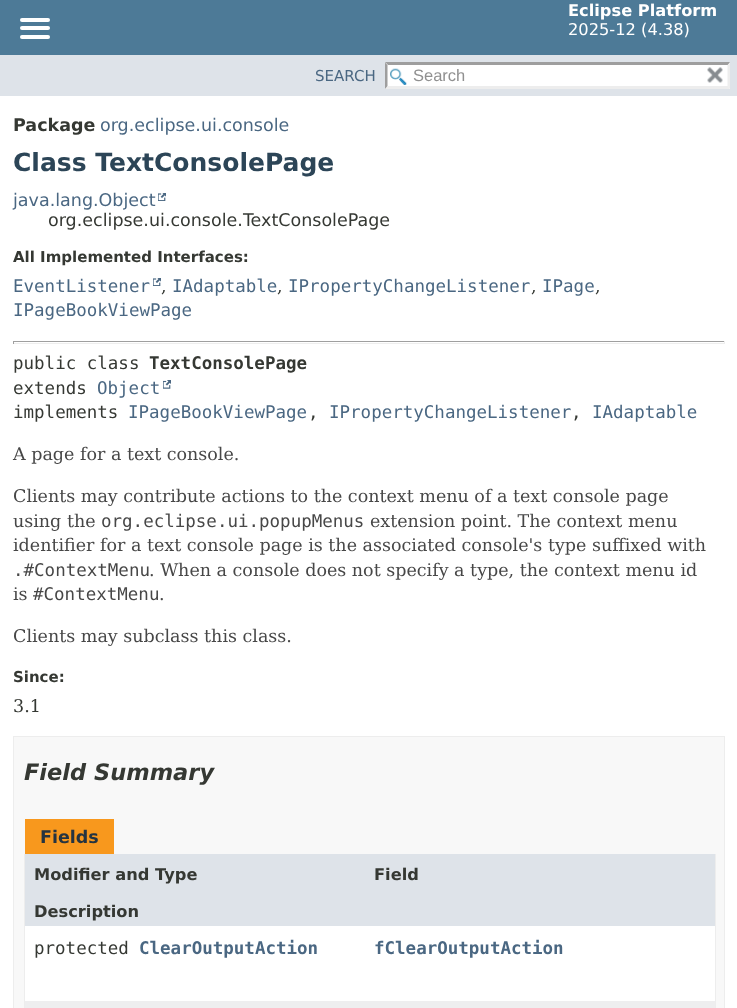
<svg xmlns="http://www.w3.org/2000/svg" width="737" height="1008">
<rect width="100%" height="100%" fill="#fff"/>
<rect width="737" height="55" fill="#4d7a97"/>
<rect x="20" y="18" width="30" height="4" rx="2" fill="#fff"/>
<rect x="20" y="26" width="30" height="4" rx="2" fill="#fff"/>
<rect x="20" y="35" width="30" height="4" rx="2" fill="#fff"/>
<text x="568" y="16" style="font-family:DejaVu Sans;font-size:16.25px;font-weight:bold;fill:#fff">Eclipse Platform</text>
<text x="568" y="35" style="font-family:DejaVu Sans;font-size:16.25px;fill:#fff">2025-12 (4.38)</text>
<rect y="55" width="737" height="41" fill="#dee3e9"/>
<text x="315" y="81" style="font-family:DejaVu Sans;font-size:15px;fill:#4a6782">SEARCH</text>
<rect x="385" y="63" width="345" height="26" fill="#fff"/>
<image x="390" y="68" width="17" height="17" href="media/1.png"/>
<path d="M385 62h345l-2 3h-340z" fill="#9e9e9e"/>
<path d="M730 62.5v26.5l-2.5-3v-21z" fill="#ededed"/>
<path d="M730 89h-345l3-3h340z" fill="#ededed"/>
<path d="M385 89v-26.5l2.5 2.5v21z" fill="#9e9e9e"/>
<text x="413" y="81" style="font-family:Liberation Sans;font-size:16.5px;fill:#909090">Search</text>
<image x="707" y="67" width="16" height="16" href="media/2.png"/>
<text x="13" y="131" style="font-family:DejaVu Sans;font-size:17.5px;font-weight:bold;fill:#353833">Package</text>
<text x="100" y="131" style="font-family:DejaVu Sans;font-size:17.5px;fill:#4a6782">org.eclipse.ui.console</text>
<text x="13" y="171" style="font-family:DejaVu Sans;font-size:25px;font-weight:bold;fill:#2c4557">Class TextConsolePage</text>
<text x="13" y="206" style="font-family:DejaVu Sans;font-size:17.5px;fill:#4a6782">java.lang.Object</text>
<image x="158" y="193" width="8" height="8" href="media/3.png"/>
<text x="48" y="226" style="font-family:DejaVu Sans;font-size:17.5px;fill:#353833">org.eclipse.ui.console.TextConsolePage</text>
<text x="13" y="262" style="font-family:DejaVu Sans;font-size:15px;font-weight:bold;fill:#353833">All Implemented Interfaces:</text>
<text x="13" y="292" style="font-family:DejaVu Sans Mono;font-size:17.5px;fill:#4a6782">EventListener</text>
<image x="153" y="278" width="8" height="8" href="media/3.png"/>
<text x="161" y="292" style="font-family:DejaVu Serif;font-size:17.5px;fill:#353833">,</text>
<text x="172" y="292" style="font-family:DejaVu Sans Mono;font-size:17.5px;fill:#4a6782">IAdaptable</text>
<text x="277" y="292" style="font-family:DejaVu Serif;font-size:17.5px;fill:#353833">,</text>
<text x="288" y="292" style="font-family:DejaVu Sans Mono;font-size:17.5px;fill:#4a6782">IPropertyChangeListener</text>
<text x="531" y="292" style="font-family:DejaVu Serif;font-size:17.5px;fill:#353833">,</text>
<text x="542" y="292" style="font-family:DejaVu Sans Mono;font-size:17.5px;fill:#4a6782">IPage</text>
<text x="595" y="292" style="font-family:DejaVu Serif;font-size:17.5px;fill:#353833">,</text>
<text x="13" y="316" style="font-family:DejaVu Sans Mono;font-size:17.5px;fill:#4a6782">IPageBookViewPage</text>
<rect x="13" y="341" width="712" height="1" fill="#9f9f9f"/>
<rect x="724" y="341" width="1" height="3" fill="#eee"/>
<rect x="13" y="343" width="712" height="1" fill="#eee"/>
<rect x="13" y="341" width="1" height="3" fill="#9f9f9f"/>
<text x="13" y="369" style="font-family:DejaVu Sans Mono;font-size:17.5px;fill:#353833">public class</text>
<text x="149" y="369" style="font-family:DejaVu Sans Mono;font-size:17.5px;font-weight:bold;fill:#353833">TextConsolePage</text>
<text x="13" y="394" style="font-family:DejaVu Sans Mono;font-size:17.5px;fill:#353833">extends</text>
<text x="97" y="394" style="font-family:DejaVu Sans Mono;font-size:17.5px;fill:#4a6782">Object</text>
<image x="163" y="380" width="8" height="9" href="media/4.png"/>
<text x="13" y="418" style="font-family:DejaVu Sans Mono;font-size:17.5px;fill:#353833">implements</text>
<text x="128" y="418" style="font-family:DejaVu Sans Mono;font-size:17.5px;fill:#4a6782">IPageBookViewPage</text>
<text x="308" y="418" style="font-family:DejaVu Sans Mono;font-size:17.5px;fill:#353833">,</text>
<text x="329" y="418" style="font-family:DejaVu Sans Mono;font-size:17.5px;fill:#4a6782">IPropertyChangeListener</text>
<text x="571" y="418" style="font-family:DejaVu Sans Mono;font-size:17.5px;fill:#353833">,</text>
<text x="592" y="418" style="font-family:DejaVu Sans Mono;font-size:17.5px;fill:#4a6782">IAdaptable</text>
<text x="13" y="460" style="font-family:DejaVu Serif;font-size:17.5px;fill:#474747">A page for a text console.</text>
<text x="13" y="502" style="font-family:DejaVu Serif;font-size:17.5px;fill:#474747">Clients may contribute actions to the context menu of a text console page</text>
<text x="13" y="527" style="font-family:DejaVu Serif;font-size:17.5px;fill:#474747">using the</text>
<text x="101" y="527" style="font-family:DejaVu Sans Mono;font-size:17.5px;fill:#474747">org.eclipse.ui.popupMenus</text>
<text x="370" y="527" style="font-family:DejaVu Serif;font-size:17.5px;fill:#474747">extension point. The context menu</text>
<text x="13" y="551" style="font-family:DejaVu Serif;font-size:17.5px;fill:#474747">identifier for a text console page is the associated console's type suffixed with</text>
<text x="13" y="576" style="font-family:DejaVu Sans Mono;font-size:17.5px;fill:#474747">.#ContextMenu</text>
<text x="149" y="576" style="font-family:DejaVu Serif;font-size:17.5px;fill:#474747">. When a console does not specify a type, the context menu id</text>
<text x="13" y="600" style="font-family:DejaVu Serif;font-size:17.5px;fill:#474747">is</text>
<text x="33" y="600" style="font-family:DejaVu Sans Mono;font-size:17.5px;fill:#474747">#ContextMenu</text>
<text x="159" y="600" style="font-family:DejaVu Serif;font-size:17.5px;fill:#474747">.</text>
<text x="13" y="642" style="font-family:DejaVu Serif;font-size:17.5px;fill:#474747">Clients may subclass this class.</text>
<text x="13" y="682" style="font-family:DejaVu Sans;font-size:15px;font-weight:bold;fill:#353833">Since:</text>
<text x="13" y="712" style="font-family:DejaVu Serif;font-size:17.5px;fill:#353833">3.1</text>
<rect x="13.5" y="736.5" width="711" height="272" fill="#f8f8f8" stroke="#ededed"/>
<text x="24" y="780" style="font-family:DejaVu Sans;font-size:22.5px;font-weight:bold;font-style:italic;fill:#353833">Field Summary</text>
<rect x="25" y="819" width="89" height="35" fill="#f8981d"/>
<text x="40" y="843" style="font-family:DejaVu Sans;font-size:17.5px;font-weight:bold;fill:#253441">Fields</text>
<rect x="715" y="854" width="1" height="154" fill="#ededed"/>
<rect x="24" y="854" width="1" height="154" fill="#ededed"/>
<rect x="25" y="854" width="690" height="72" fill="#dee3e9"/>
<text x="34" y="880" style="font-family:DejaVu Sans;font-size:16.25px;font-weight:bold;fill:#353833">Modifier and Type</text>
<text x="374" y="880" style="font-family:DejaVu Sans;font-size:16.25px;font-weight:bold;fill:#353833">Field</text>
<text x="34" y="917" style="font-family:DejaVu Sans;font-size:16.25px;font-weight:bold;fill:#353833">Description</text>
<rect x="25" y="926" width="690" height="75" fill="#fff"/>
<text x="34" y="954" style="font-family:DejaVu Sans Mono;font-size:17.5px;fill:#353833">protected</text>
<text x="139" y="954" style="font-family:DejaVu Sans Mono;font-size:17.5px;font-weight:bold;fill:#4a6782">ClearOutputAction</text>
<text x="374" y="954" style="font-family:DejaVu Sans Mono;font-size:17.5px;font-weight:bold;fill:#4a6782">fClearOutputAction</text>
<rect x="25" y="1001" width="690" height="7" fill="#eeeeef"/>
</svg>
